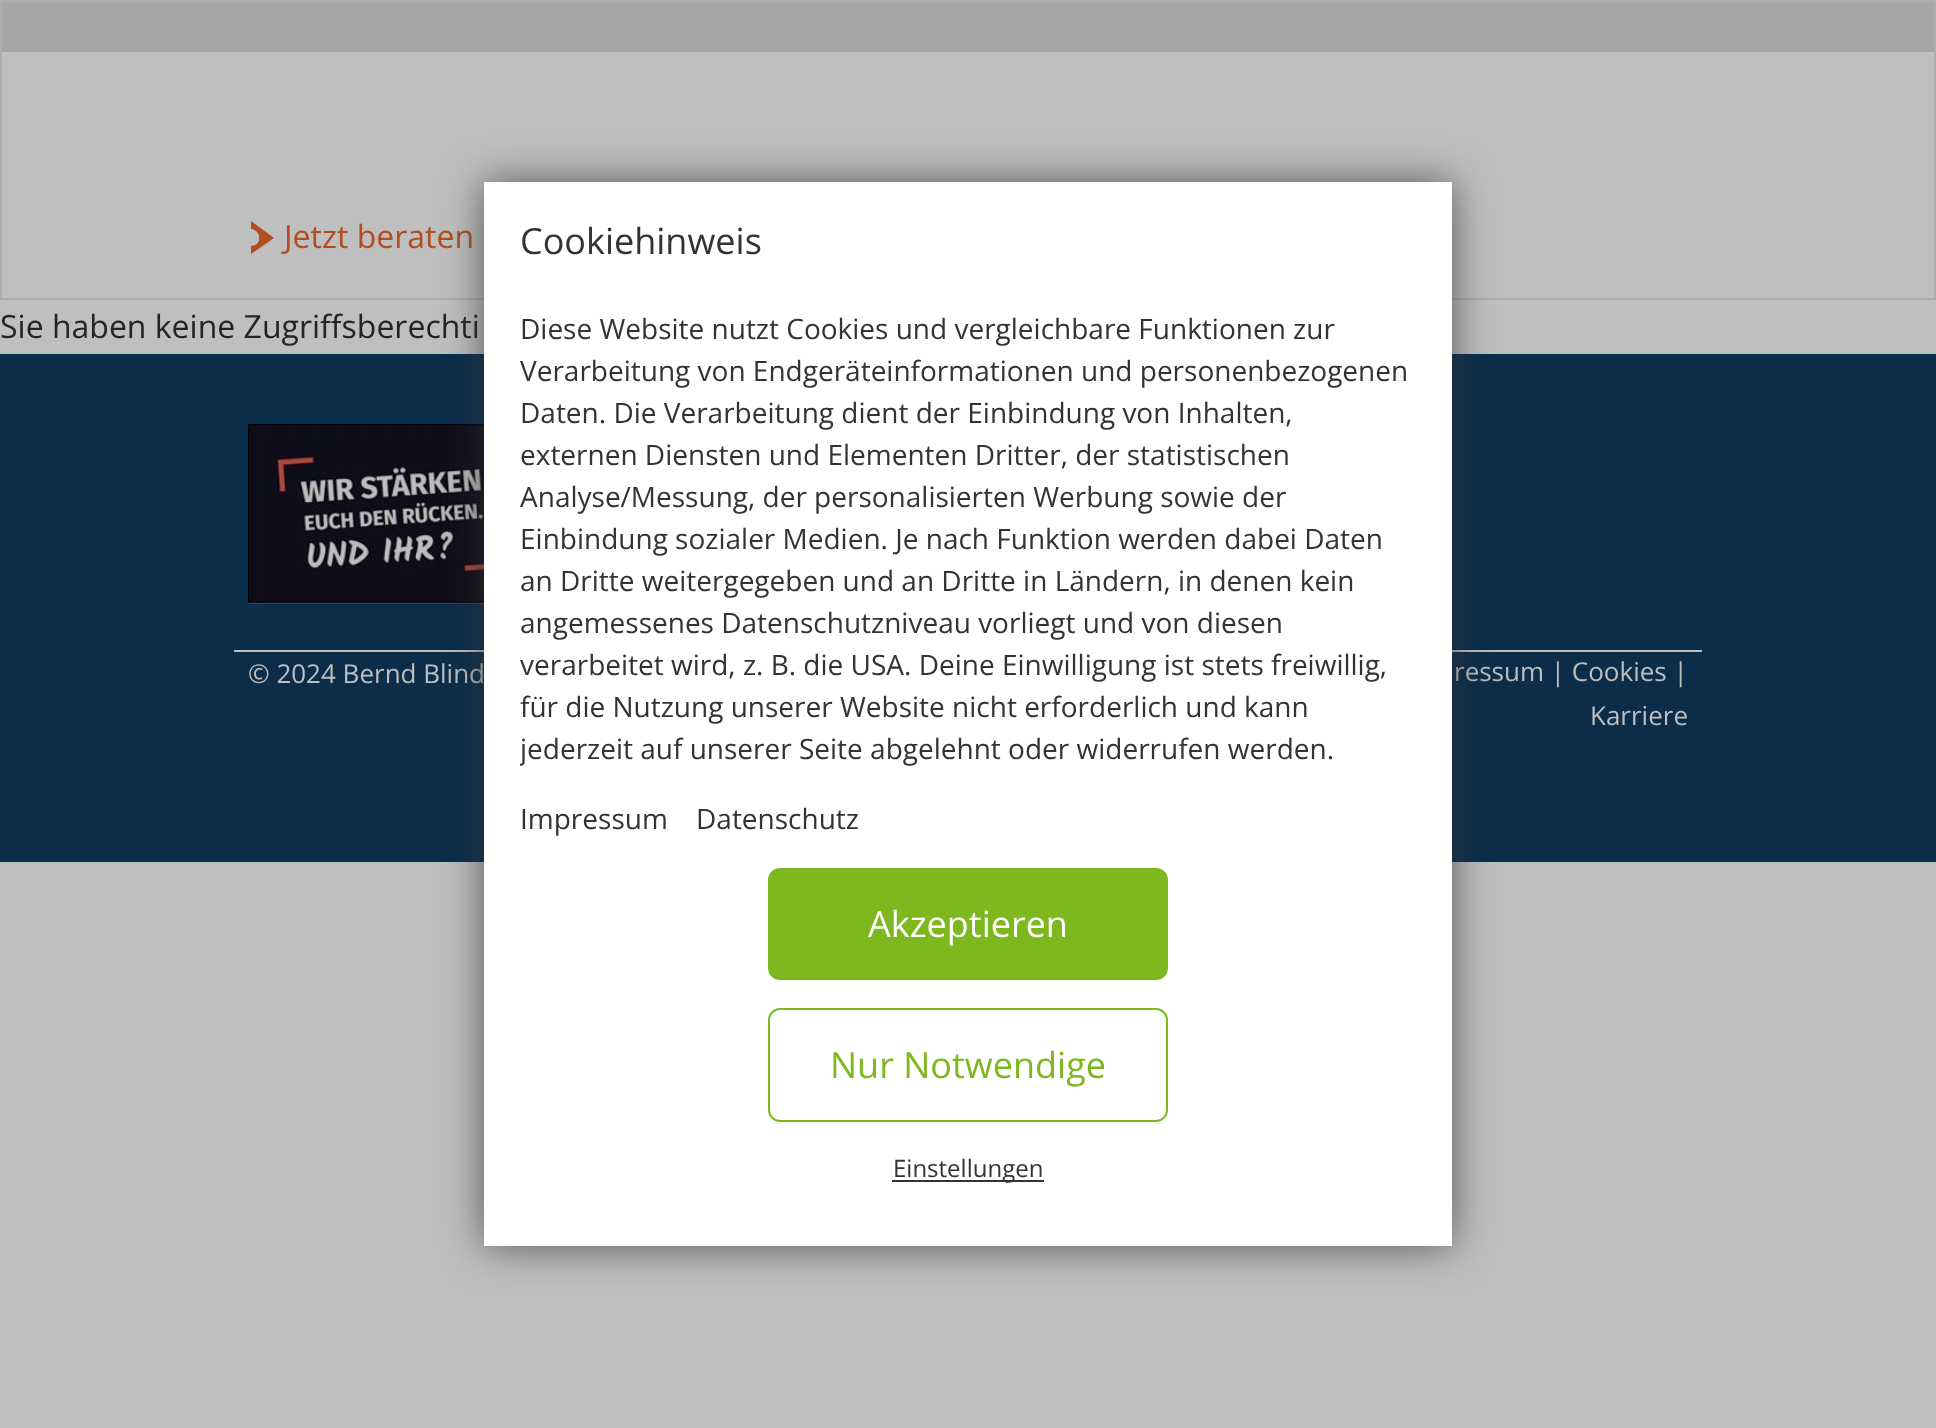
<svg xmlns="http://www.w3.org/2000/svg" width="1936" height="1428">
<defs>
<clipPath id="clip1"><rect x="248" y="218" width="28" height="42"/></clipPath>
<clipPath id="clip2"><rect x="520" y="210" width="896" height="630"/></clipPath>
</defs>
<rect width="100%" height="100%" fill="#bfbfbf"/>
<rect x="1" y="1" width="1934" height="298" fill="none" stroke="#adadad" stroke-width="2"/>
<rect x="2" y="2" width="1932" height="50" fill="#a6a6a6"/>
<rect x="251" y="221" width="23" height="33" fill="#b14d1f"/>
<g clip-path="url(#clip1)">
<path d="M245 215v48h36v-48zm6 39v-8c11 0 11-16 0-17v-8l23 17z" fill="#bfbfbf"/>
</g>
<text x="284" y="248" style="font-family:Open Sans;font-size:32px;fill:#b14d1f">Jetzt beraten</text>
<text x="0" y="338" style="font-family:Open Sans;font-size:32px;fill:#242424">Sie haben keine Zugriffsberechti</text>
<rect y="354" width="1936" height="508" fill="#0b2d4a"/>
<image x="248" y="424" width="236" height="180" href="media/1.png"/>
<rect x="234" y="650" width="1468" height="2" fill="#bfbfbf"/>
<text x="248" y="683" style="font-family:Open Sans;font-size:26px;fill:#bfbfbf">© 2024 Bernd Blind</text>
<text x="1454" y="681" style="font-family:Open Sans;font-size:26px;fill:#bfbfbf">ressum | Cookies |</text>
<text x="1590" y="725" style="font-family:Open Sans;font-size:26px;fill:#bfbfbf">Karriere</text>
<rect x="484" y="182" width="968" height="1064" fill="#333333bf" filter="blur(20px)"/>
<rect x="484" y="182" width="968" height="1064" fill="#fff"/>
<text x="520" y="254" style="font-family:Open Sans;font-size:36px;fill:#333">Cookiehinweis</text>
<text x="520" y="339" style="font-family:Open Sans;font-size:28px;fill:#333">Diese Website nutzt Cookies und vergleichbare Funktionen zur</text>
<text x="520" y="381" style="font-family:Open Sans;font-size:28px;fill:#333">Verarbeitung von Endgeräteinformationen und personenbezogenen</text>
<text x="520" y="423" style="font-family:Open Sans;font-size:28px;fill:#333">Daten. Die Verarbeitung dient der Einbindung von Inhalten,</text>
<text x="520" y="465" style="font-family:Open Sans;font-size:28px;fill:#333">externen Diensten und Elementen Dritter, der statistischen</text>
<text x="520" y="507" style="font-family:Open Sans;font-size:28px;fill:#333">Analyse/Messung, der personalisierten Werbung sowie der</text>
<text x="520" y="549" style="font-family:Open Sans;font-size:28px;fill:#333">Einbindung sozialer Medien. Je nach Funktion werden dabei Daten</text>
<text x="520" y="591" style="font-family:Open Sans;font-size:28px;fill:#333">an Dritte weitergegeben und an Dritte in Ländern, in denen kein</text>
<text x="520" y="633" style="font-family:Open Sans;font-size:28px;fill:#333">angemessenes Datenschutzniveau vorliegt und von diesen</text>
<text x="520" y="675" style="font-family:Open Sans;font-size:28px;fill:#333">verarbeitet wird, z. B. die USA. Deine Einwilligung ist stets freiwillig,</text>
<text x="520" y="717" style="font-family:Open Sans;font-size:28px;fill:#333">für die Nutzung unserer Website nicht erforderlich und kann</text>
<g clip-path="url(#clip2)">
<text x="520" y="759" style="font-family:Open Sans;font-size:28px;fill:#333">jederzeit auf unserer Seite abgelehnt oder widerrufen werden.</text>
</g>
<text x="520" y="829" style="font-family:Open Sans;font-size:28px;fill:#333">Impressum</text>
<text x="696" y="829" style="font-family:Open Sans;font-size:28px;fill:#333">Datenschutz</text>
<rect x="769" y="869" width="398" height="110" rx="11" fill="#7db81e" stroke="#7db81e" stroke-width="2"/>
<text x="868" y="937" style="font-family:Open Sans;font-size:36px;fill:#fff">Akzeptieren</text>
<rect x="769" y="1009" width="398" height="112" rx="11" fill="none" stroke="#7db81e" stroke-width="2"/>
<text x="830" y="1078" style="font-family:Open Sans;font-size:36px;fill:#7db81e">Nur Notwendige</text>
<rect x="892" y="1180" width="152" height="2" fill="#333"/>
<text x="893" y="1177" style="font-family:Open Sans;font-size:24px;fill:#333">Einstellungen</text>
</svg>
